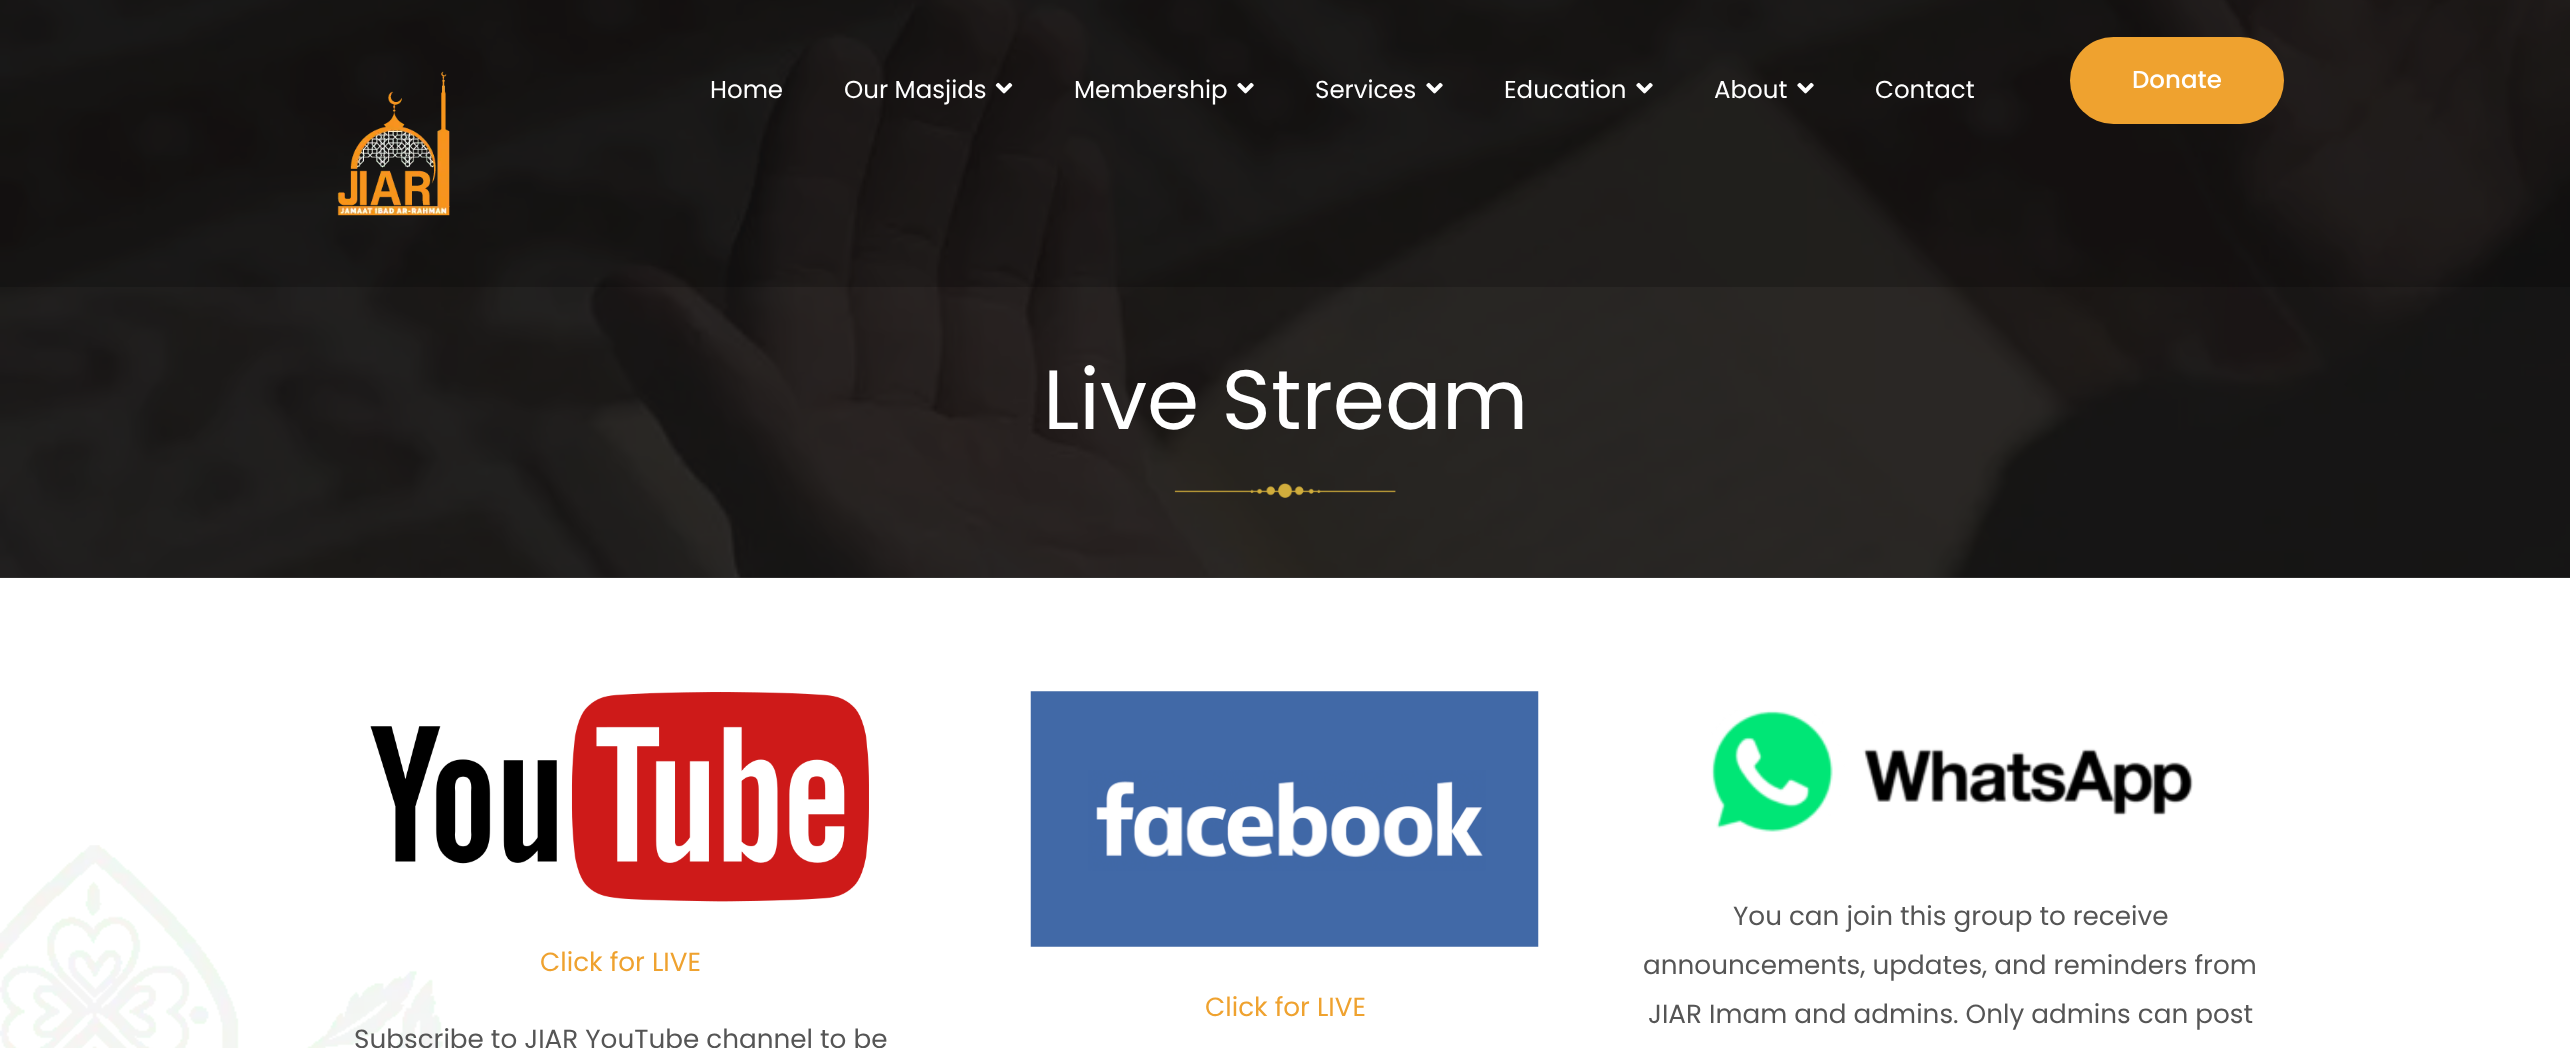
<svg xmlns="http://www.w3.org/2000/svg" width="2570" height="1048">
<rect width="100%" height="100%" fill="#fff"/>
<rect y="577" width="2570" height="1" fill="#3a3a3a"/>
<image x="0" y="0" width="2570" height="578" href="media/7.png"/>
<rect width="2570" height="287" fill="#00000033"/>
<image x="337" y="71" width="113" height="145" href="media/1.png"/>
<text x="710" y="98" style="font-family:Poppins;font-size:24.5px;fill:#fff">Home</text>
<text x="844" y="98" style="font-family:Poppins;font-size:24.5px;fill:#fff">Our Masjids</text>
<image x="995" y="82" width="18" height="12" href="media/2.png"/>
<text x="1074" y="98" style="font-family:Poppins;font-size:24.5px;fill:#fff">Membership</text>
<image x="1237" y="82" width="17" height="12" href="media/3.png"/>
<text x="1315" y="98" style="font-family:Poppins;font-size:24.5px;fill:#fff">Services</text>
<image x="1426" y="82" width="17" height="12" href="media/4.png"/>
<text x="1504" y="98" style="font-family:Poppins;font-size:24.5px;fill:#fff">Education</text>
<image x="1636" y="82" width="17" height="12" href="media/5.png"/>
<text x="1714" y="98" style="font-family:Poppins;font-size:24.5px;fill:#fff">About</text>
<image x="1797" y="82" width="17" height="12" href="media/6.png"/>
<text x="1875" y="98" style="font-family:Poppins;font-size:24.5px;fill:#fff">Contact</text>
<rect x="2070" y="37" width="214" height="87" rx="43.5" fill="#efa22f"/>
<text x="2132" y="88" style="font-family:Poppins;font-size:24.5px;font-weight:500;fill:#fff">Donate</text>
<text x="1043" y="429" style="font-family:Poppins;font-size:84px;fill:#fff">Live Stream</text>
<image x="1174" y="483" width="222" height="15" href="media/8.png"/>
<image x="0" y="845" width="443" height="203" href="media/9.png"/>
<image x="370" y="692" width="499" height="210" href="media/10.png"/>
<text x="540" y="971" style="font-family:Poppins;font-size:26.25px;fill:#efa22f">Click for LIVE</text>
<text x="354" y="1048" style="font-family:Poppins;font-size:26.25px;fill:#555">Subscribe to JIAR YouTube channel to be</text>
<image x="1030" y="691" width="509" height="256" href="media/11.png"/>
<text x="1205" y="1016" style="font-family:Poppins;font-size:26.25px;fill:#efa22f">Click for LIVE</text>
<image x="1711" y="710" width="482" height="122" href="media/12.png"/>
<text x="1733" y="925" style="font-family:Poppins;font-size:26.25px;fill:#555">You can join this group to receive</text>
<text x="1643" y="974" style="font-family:Poppins;font-size:26.25px;fill:#555">announcements, updates, and reminders from</text>
<text x="1648" y="1023" style="font-family:Poppins;font-size:26.25px;fill:#555">JIAR Imam and admins. Only admins can post</text>
</svg>
